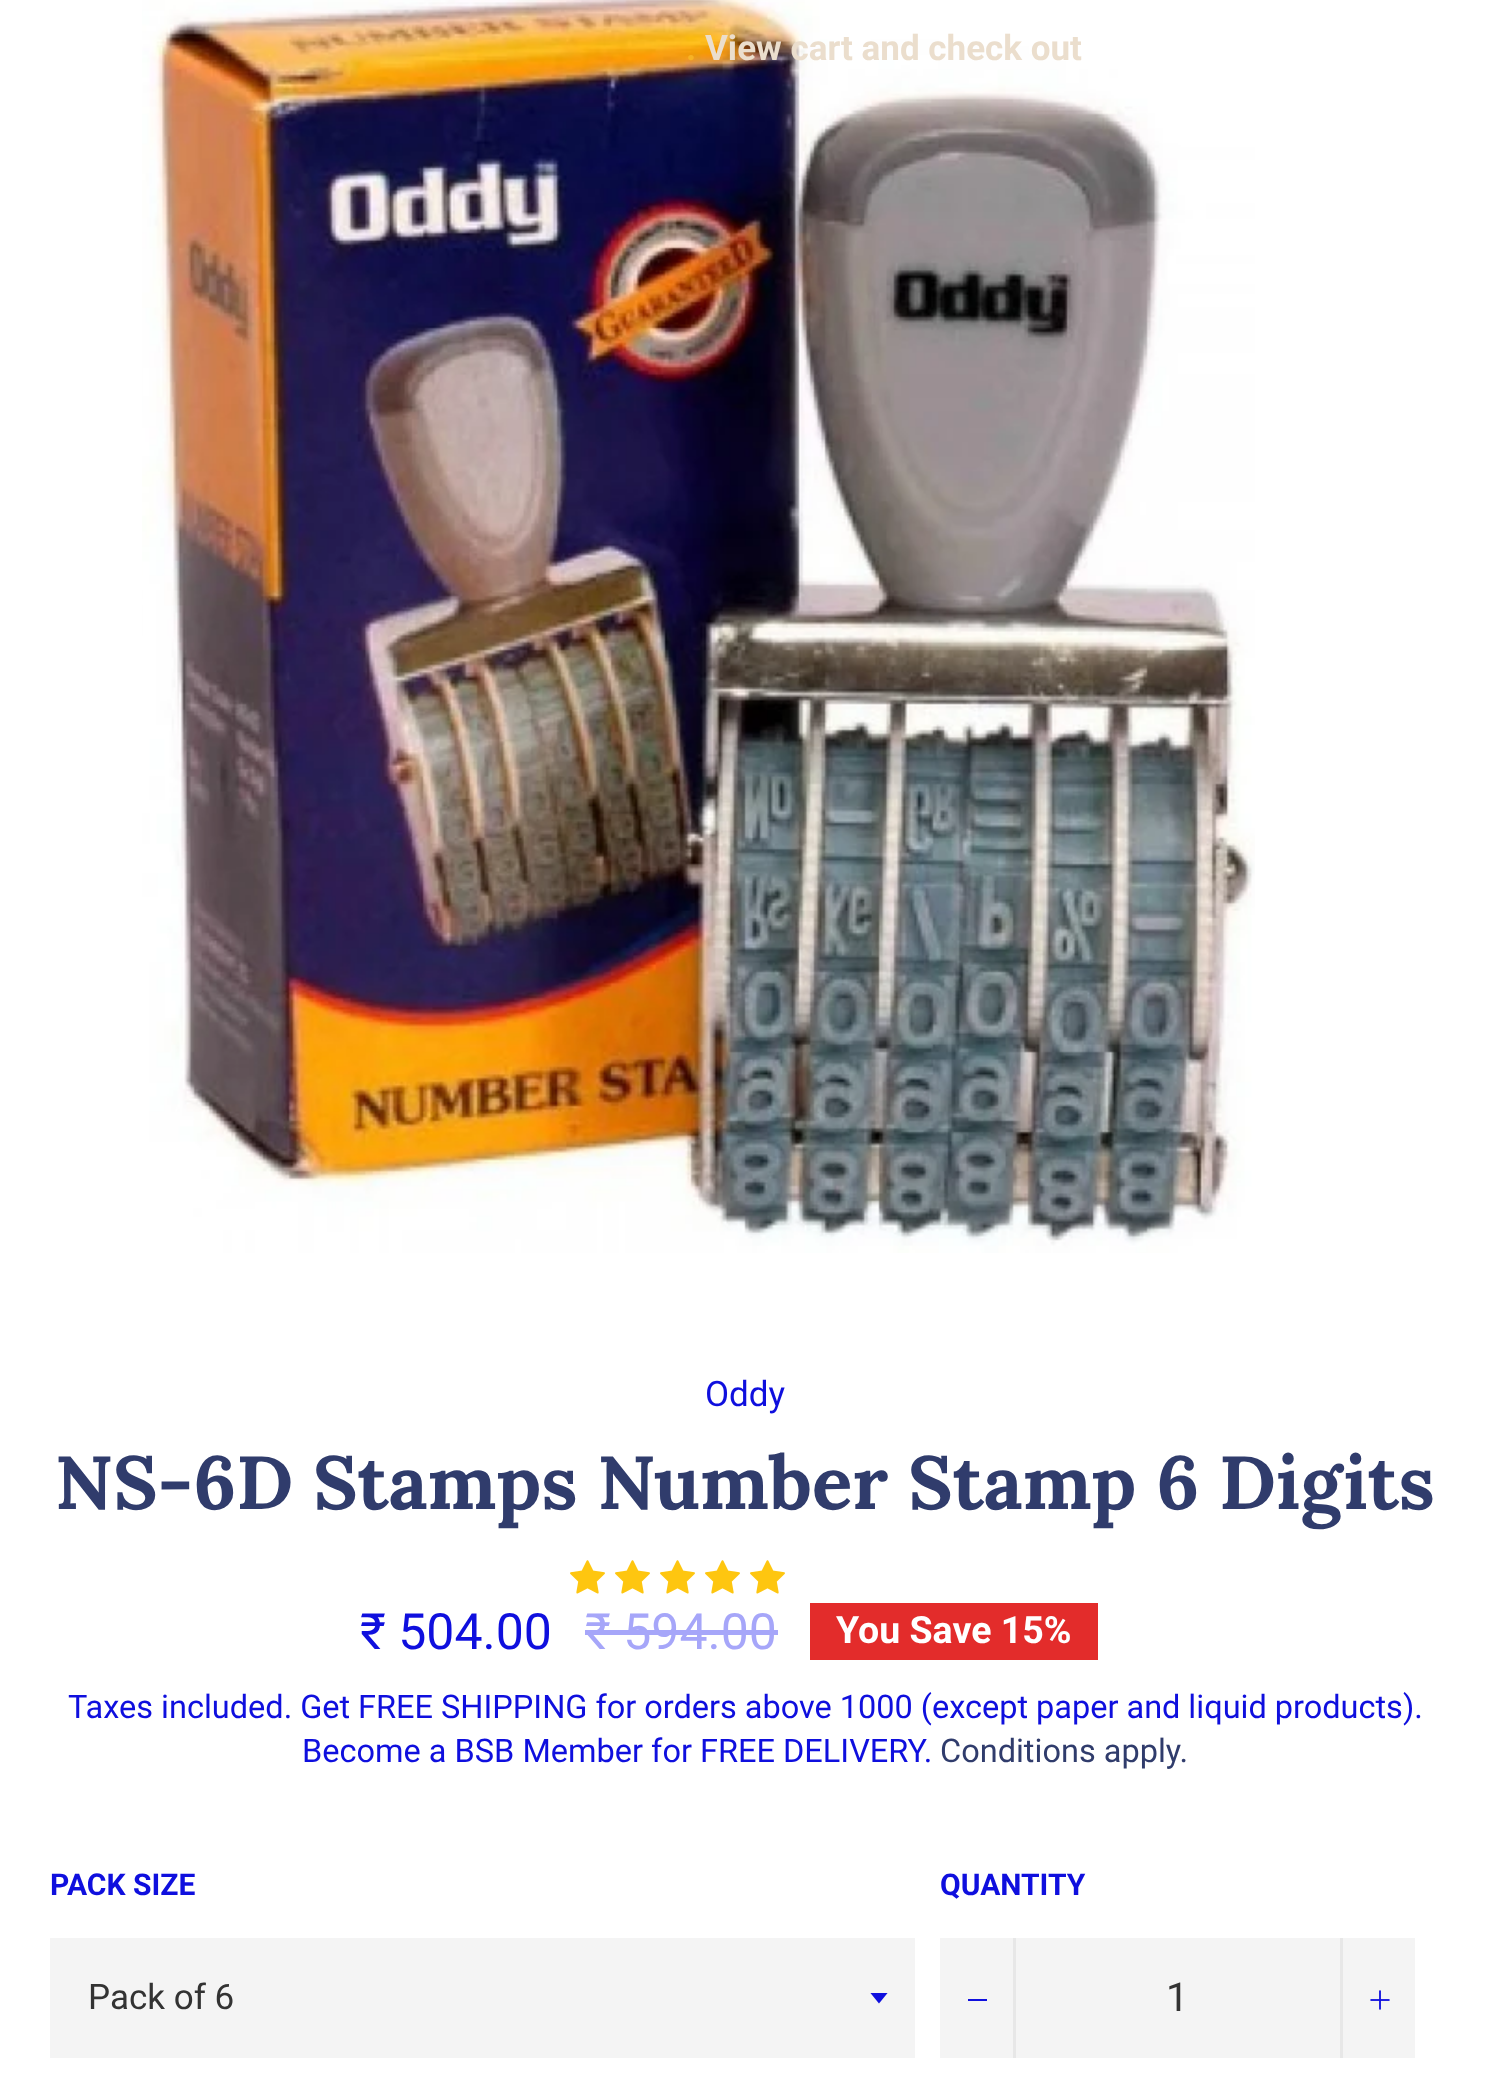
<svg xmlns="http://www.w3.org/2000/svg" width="1490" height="2082">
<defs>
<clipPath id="clip1"><rect x="870" y="1993" width="20" height="12"/></clipPath>
</defs>
<rect width="100%" height="100%" fill="#fff"/>
<image x="142" y="0" width="1113" height="1253" href="media/1.png"/>
<text x="686" y="60" style="font-family:Roboto;font-size:35px;font-weight:bold;fill:#f7b324">.</text>
<text x="705" y="60" style="font-family:Roboto;font-size:35px;font-weight:bold;fill:#ebdecd">View cart and check out</text>
<text x="705" y="1406" style="font-family:Roboto;font-size:35px;fill:#0f0fde">Oddy</text>
<text x="55" y="1509" style="font-family:Lora;font-size:75px;font-weight:bold;fill:#303c6c">NS-6D Stamps Number Stamp 6 Digits</text>
<image x="570" y="1560" width="35" height="34" href="media/2.png"/>
<image x="615" y="1560" width="35" height="34" href="media/2.png"/>
<image x="660" y="1560" width="35" height="34" href="media/2.png"/>
<image x="705" y="1560" width="35" height="34" href="media/2.png"/>
<image x="750" y="1560" width="35" height="34" href="media/2.png"/>
<text x="360" y="1649" style="font-family:Roboto;font-size:50px;fill:#0f0fde">₹ 504.00</text>
<text x="585" y="1649" style="font-family:Roboto;font-size:50px;fill:#a6a6f9">₹ 594.00</text>
<rect x="585" y="1630" width="193" height="5" fill="#a6a6f9"/>
<rect x="810" y="1603" width="288" height="57" fill="#e32c2b"/>
<text x="836" y="1643" style="font-family:Roboto;font-size:37.5px;font-weight:bold;fill:#fff">You Save 15%</text>
<text x="68" y="1718" word-spacing="-0.1" style="font-family:Roboto;font-size:32.5px;fill:#0f0fde">Taxes included. Get FREE SHIPPING for orders above 1000 (except paper and liquid products).</text>
<text x="302" y="1762" style="font-family:Roboto;font-size:32.5px;fill:#0f0fde">Become a BSB Member for FREE DELIVERY.</text>
<text x="940" y="1762" style="font-family:Roboto;font-size:32.5px;fill:#303c6c">Conditions apply.</text>
<text x="50" y="1895" style="font-family:Roboto;font-size:30px;font-weight:bold;fill:#0f0fde">PACK SIZE</text>
<rect x="50" y="1938" width="865" height="120" fill="#f4f4f4"/>
<g clip-path="url(#clip1)">
<path d="M870 1992.5l9 11l9-11z" fill="#0f0fde"/>
</g>
<text x="88" y="2009" style="font-family:Roboto;font-size:35px;fill:#333">Pack of 6</text>
<text x="940" y="1895" style="font-family:Roboto;font-size:30px;font-weight:bold;fill:#0f0fde">QUANTITY</text>
<rect x="940" y="1938" width="475" height="120" fill="#f4f4f4"/>
<rect x="1013" y="1938" width="3" height="120" fill="#e7e7e7"/>
<rect x="968" y="1999" width="19" height="2" fill="#0f0fde"/>
<text x="1166" y="2011" style="font-family:Roboto;font-size:40px;fill:#333">1</text>
<rect x="1340" y="1938" width="3" height="120" fill="#e7e7e7"/>
<image x="1370" y="1990" width="20" height="20" href="media/3.png"/>
</svg>
